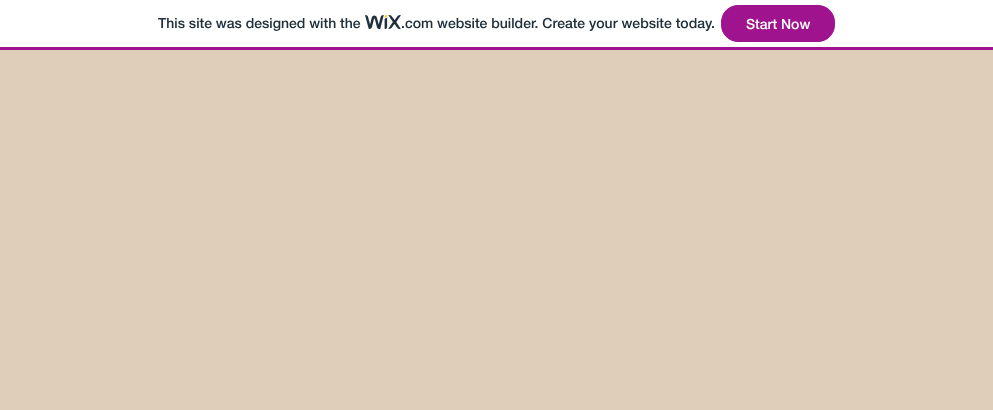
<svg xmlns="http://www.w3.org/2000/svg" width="993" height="410">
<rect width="100%" height="100%" fill="#fff"/>
<rect y="47" width="993" height="3" fill="#a0138e"/>
<text x="158" y="28" style="font-family:'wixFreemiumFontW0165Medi';font-size:14px;font-weight:500;fill:#20303c">This site was designed with the</text>
<image x="365" y="15" width="36" height="15" href="media/1.png"/>
<text x="401" y="28" style="font-family:'wixFreemiumFontW0165Medi';font-size:14px;font-weight:500;fill:#20303c">.com website builder. Create your website today.</text>
<rect x="721.5" y="5.5" width="113" height="36" rx="16.5" fill="#a0138e" stroke="#a0138e"/>
<text x="746" y="29" style="font-family:'wixFreemiumFontW0165Medi';font-size:14px;font-weight:500;fill:#fff">Start Now</text>
<rect y="50" width="993" height="360" fill="#dfcfba"/>
</svg>
